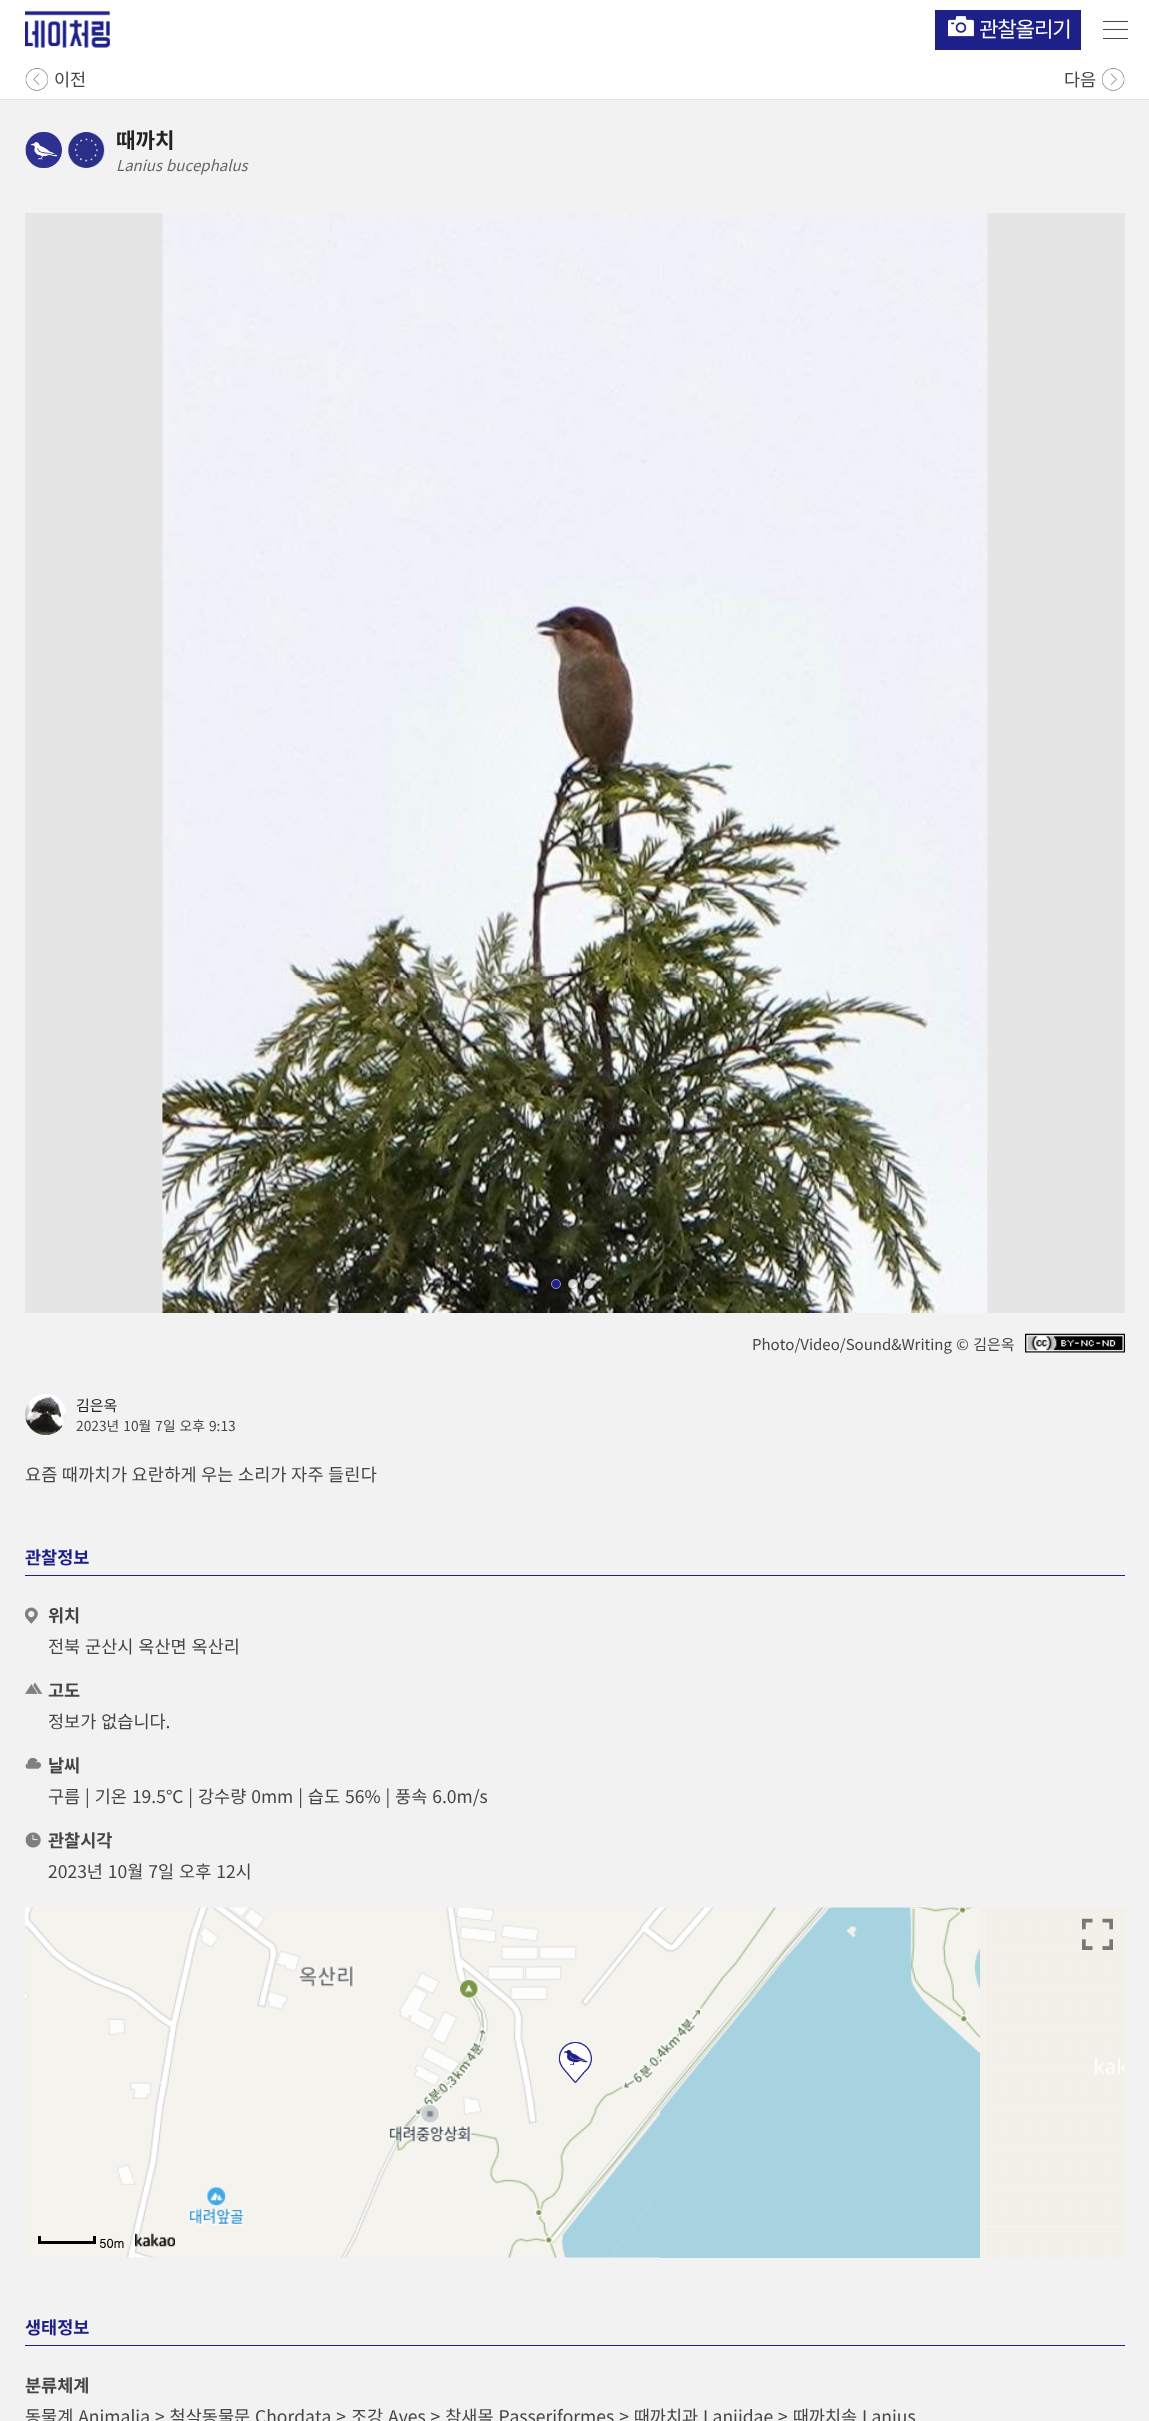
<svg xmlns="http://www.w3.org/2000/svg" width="1149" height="2421">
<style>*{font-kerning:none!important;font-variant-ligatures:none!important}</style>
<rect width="100%" height="100%" fill="#f2f2f2"/>
<rect width="1149" height="99" fill="#fff"/>
<image x="25" y="10" width="85" height="38" href="media/1.png"/>
<rect x="935" y="10" width="146" height="40" fill="#1d2088"/>
<image x="948" y="16" width="26" height="21" href="media/2.png"/>
<text x="979" y="37" style="font-family:Noto Sans KR;font-size:21.25px;letter-spacing:-1.25px;fill:#fff">관찰올리기</text>
<rect x="1103" y="21" width="25" height="1" fill="#454545"/>
<rect x="1103" y="29" width="25" height="1" fill="#454545"/>
<rect x="1103" y="38" width="25" height="1" fill="#454545"/>
<rect y="99" width="1149" height="1" fill="#e2e2e2"/>
<image x="25" y="68" width="23" height="23" href="media/3.png"/>
<text x="54" y="86" style="font-family:Noto Sans KR;font-size:17.5px;fill:#454545">이전</text>
<text x="1064" y="86" style="font-family:Noto Sans KR;font-size:17.5px;fill:#454545">다음</text>
<image x="1102" y="68" width="23" height="23" href="media/4.png"/>
<image x="25" y="132" width="37" height="36" href="media/5.png"/>
<image x="68" y="132" width="37" height="36" href="media/6.png"/>
<text x="116" y="148" style="font-family:Noto Sans KR;font-size:21.25px;font-weight:bold;fill:#222">때까치</text>
<text x="116" y="171" style="font-family:Noto Sans KR;font-size:15px;font-style:italic;fill:#666">Lanius</text>
<text x="166" y="171" style="font-family:Noto Sans KR;font-size:15px;font-style:italic;fill:#666">bucephalus</text>
<rect x="25" y="213" width="1100" height="1100" fill="#e5e5e5"/>
<image x="162" y="213" width="826" height="1100" href="media/7.png"/>
<circle cx="556" cy="1284" r="5" fill="#1d2088"/>
<circle cx="556" cy="1284" r="4.5" fill="none" stroke="#ffffff80"/>
<circle cx="573" cy="1284" r="5" fill="#ffffffcc"/>
<circle cx="573" cy="1284" r="4.5" fill="none" stroke="#0000003d"/>
<circle cx="589" cy="1284" r="5" fill="#ffffffcc"/>
<circle cx="589" cy="1284" r="4.5" fill="none" stroke="#0000003d"/>
<text x="752" y="1350" word-spacing="1" style="font-family:Noto Sans KR;font-size:15px;fill:#454545">Photo/Video/Sound&amp;Writing © 김은옥</text>
<image x="1025" y="1333" width="100" height="20" href="media/8.png"/>
<image x="25" y="1394" width="41" height="41" href="media/9.png"/>
<text x="76" y="1411" style="font-family:Noto Sans KR;font-size:15px;fill:#222">김은옥</text>
<text x="76" y="1431" word-spacing="1" style="font-family:Noto Sans KR;font-size:13.75px;fill:#454545">2023년 10월 7일 오후 9:13</text>
<text x="25" y="1481" style="font-family:Noto Sans KR;font-size:17.5px;letter-spacing:0.25px;fill:#454545">요즘 때까치가 요란하게 우는 소리가 자주 들린다</text>
<rect x="25" y="1575" width="1100" height="1" fill="#1d2088"/>
<text x="25" y="1564" style="font-family:Noto Sans KR;font-size:17.5px;font-weight:bold;fill:#1d2088">관찰정보</text>
<image x="25" y="1607" width="13" height="17" href="media/10.png"/>
<text x="48" y="1622" style="font-family:Noto Sans KR;font-size:17.5px;font-weight:bold;fill:#454545">위치</text>
<text x="48" y="1653" word-spacing="1" style="font-family:Noto Sans KR;font-size:17.5px;fill:#454545">전북 군산시 옥산면 옥산리</text>
<image x="25" y="1682" width="18" height="12" href="media/11.png"/>
<text x="48" y="1697" style="font-family:Noto Sans KR;font-size:17.5px;font-weight:bold;fill:#454545">고도</text>
<text x="48" y="1728" word-spacing="1" style="font-family:Noto Sans KR;font-size:17.5px;fill:#454545">정보가 없습니다.</text>
<image x="25" y="1758" width="17" height="11" href="media/12.png"/>
<text x="48" y="1772" style="font-family:Noto Sans KR;font-size:17.5px;font-weight:bold;fill:#454545">날씨</text>
<text x="48" y="1803" word-spacing="1" style="font-family:Noto Sans KR;font-size:17.5px;fill:#454545">구름 | 기온 19.5℃ | 강수량 0mm | 습도 56% | 풍속 6.0m/s</text>
<image x="25" y="1832" width="16" height="16" href="media/13.png"/>
<text x="48" y="1847" style="font-family:Noto Sans KR;font-size:17.5px;font-weight:bold;fill:#454545">관찰시각</text>
<text x="48" y="1878" word-spacing="1" style="font-family:Noto Sans KR;font-size:17.5px;fill:#454545">2023년 10월 7일 오후 12시</text>
<image x="25" y="1908" width="1100" height="350" href="media/15.png"/>
<image x="1082" y="1918" width="31" height="32" href="media/14.png"/>
<image x="25" y="1907" width="315" height="308" href="media/16.png"/>
<image x="340" y="1907" width="320" height="308" href="media/17.png"/>
<image x="660" y="1907" width="320" height="308" href="media/18.png"/>
<image x="25" y="2215" width="315" height="43" href="media/19.png"/>
<image x="340" y="2215" width="320" height="43" href="media/20.png"/>
<rect x="660" y="2215" width="320" height="43" fill="#a7d3e1"/>
<image x="558" y="2042" width="34" height="41" href="media/21.png"/>
<rect x="93" y="2236" width="3" height="8" fill="#000"/>
<rect x="38" y="2241" width="57" height="3" fill="#000"/>
<rect x="38" y="2236" width="3" height="8" fill="#000"/>
<text x="99" y="2248" style="font-family:Dotum;font-size:12.5px;font-weight:bold;fill:#000">50m</text>
<image x="135" y="2233" width="40" height="14" href="media/22.png"/>
<rect x="25" y="2345" width="1100" height="1" fill="#1d2088"/>
<text x="25" y="2334" style="font-family:Noto Sans KR;font-size:17.5px;font-weight:bold;fill:#1d2088">생태정보</text>
<text x="25" y="2392" style="font-family:Noto Sans KR;font-size:17.5px;font-weight:bold;fill:#454545">분류체계</text>
<text x="25" y="2423" word-spacing="1" style="font-family:Noto Sans KR;font-size:17.5px;fill:#454545">동물계 Animalia &gt; 척삭동물문 Chordata &gt; 조강 Aves &gt; 참새목 Passeriformes &gt; 때까치과 Laniidae &gt; 때까치속 Lanius</text>
</svg>
